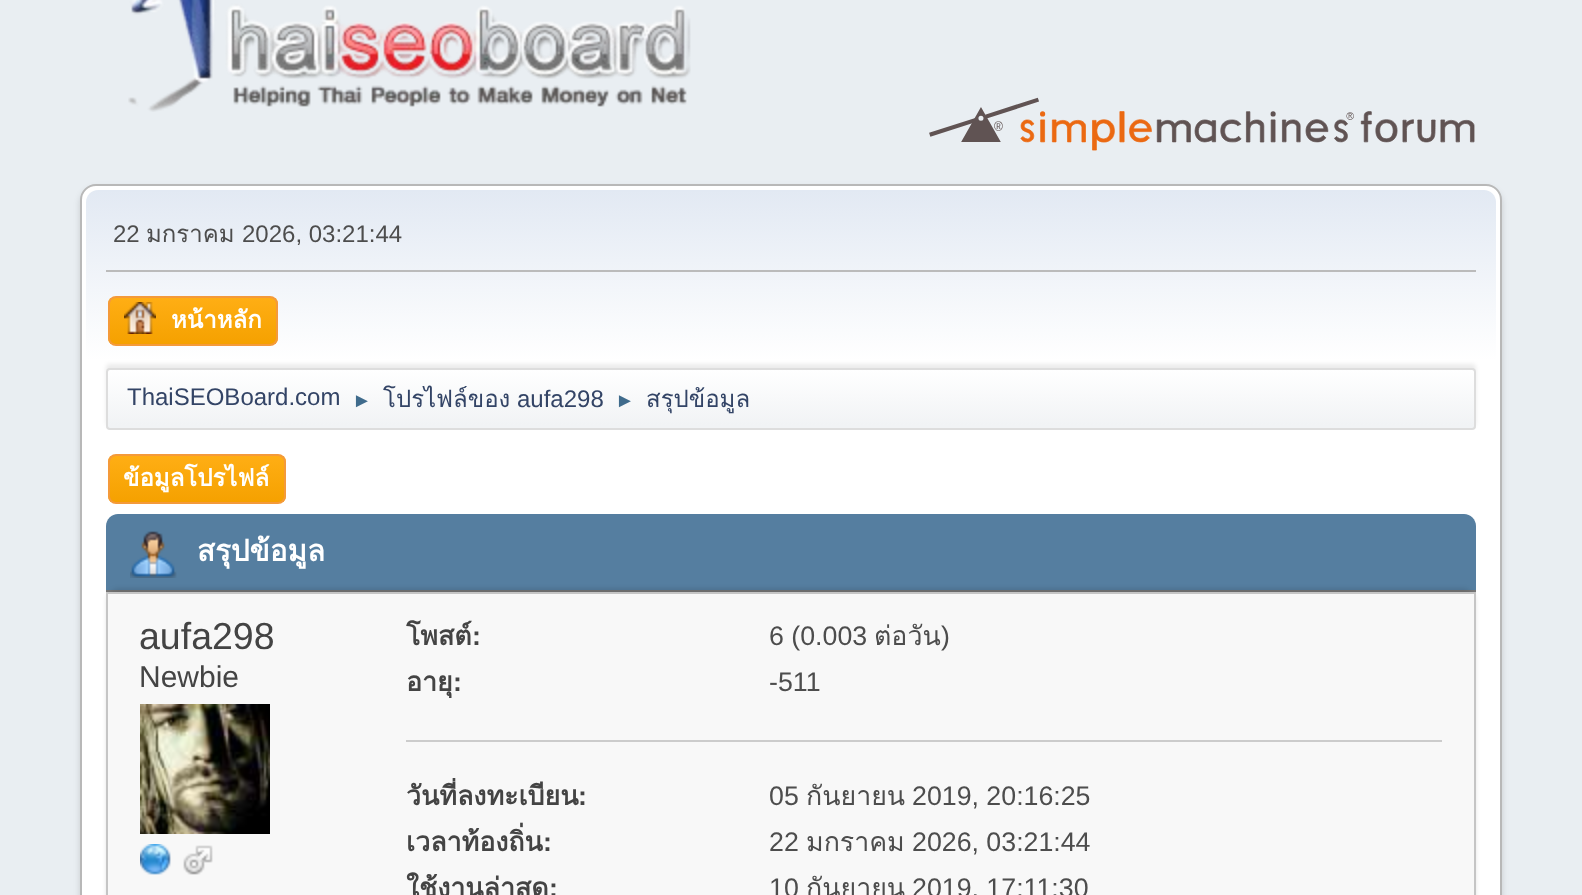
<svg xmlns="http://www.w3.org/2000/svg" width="1582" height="895">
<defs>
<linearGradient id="g1" gradientUnits="userSpaceOnUse" x1="791" y1="190" x2="791" y2="434"><stop offset="0" stop-color="#e2e9f3"/><stop offset="0.7" stop-color="#fff"/></linearGradient>
<clipPath id="clip1"><rect x="108" y="296" width="170" height="50" rx="8"/></clipPath>
<linearGradient id="g2" gradientUnits="userSpaceOnUse" x1="193" y1="298" x2="193" y2="344"><stop offset="0" stop-color="#ffae14"/><stop offset="1" stop-color="#f5a100"/></linearGradient>
<clipPath id="clip2"><rect x="106" y="368" width="1370" height="62" rx="4"/></clipPath>
<linearGradient id="g3" gradientUnits="userSpaceOnUse" x1="791" y1="370" x2="791" y2="428"><stop offset="0" stop-color="#fff"/><stop offset="0.95" stop-color="#f1f3f5"/></linearGradient>
<clipPath id="clip3"><rect x="108" y="454" width="178" height="50" rx="8"/></clipPath>
<linearGradient id="g4" gradientUnits="userSpaceOnUse" x1="197" y1="456" x2="197" y2="502"><stop offset="0" stop-color="#ffae14"/><stop offset="1" stop-color="#f5a100"/></linearGradient>
<clipPath id="clip4"><rect x="406" y="778" width="1036" height="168"/></clipPath>
</defs>
<rect width="100%" height="100%" fill="#e9eef2"/>
<image x="128" y="0" width="563" height="112" href="media/1.png"/>
<image x="929" y="97" width="546" height="54" href="media/2.png"/>
<rect x="80" y="188" width="1422" height="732" rx="16" fill="#00000024" filter="blur(3px)"/>
<rect x="81" y="185" width="1420" height="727" rx="15" fill="#fff" stroke="#b8b8b8" stroke-width="2"/>
<path d="M98 190h1386c6.5 0 12 5.5 12 12v232h-1410v-232c0-6.5 5.5-12 12-12z" fill="url(#g1)"/>
<rect x="106" y="270" width="1370" height="2" fill="#bbb"/>
<text x="113" y="242" style="font-family:Liberation Sans;font-size:24px;fill:#4d4d4d">22</text>
<text x="146" y="242" style="font-family:Loma;font-size:24px;fill:#4d4d4d">มกราคม</text>
<text x="242" y="242" style="font-family:Liberation Sans;font-size:24px;fill:#4d4d4d">2026, 03:21:44</text>
<g clip-path="url(#clip1)">
<rect x="108" y="298" width="170" height="46" fill="url(#g2)"/>
</g>
<rect x="109" y="297" width="168" height="48" rx="7" fill="none" stroke="#f49a3a" stroke-width="2"/>
<image x="124" y="302" width="32" height="32" href="media/3.png"/>
<text x="171" y="328" style="font-family:Loma;font-size:24px;font-weight:bold;fill:#fff">หน้าหลัก</text>
<rect x="106" y="364" width="1370" height="62" rx="4" fill="#00000014" filter="blur(2px)"/>
<g clip-path="url(#clip2)">
<rect x="106" y="370" width="1370" height="58" fill="url(#g3)"/>
</g>
<rect x="107" y="369" width="1368" height="60" rx="3" fill="none" stroke="#ddd" stroke-width="2"/>
<text x="127" y="405" style="font-family:Liberation Sans;font-size:24px;fill:#346">ThaiSEOBoard.com</text>
<text x="352" y="407" style="font-family:Liberation Sans;font-size:20px;fill:#3f6b8c">►</text>
<text x="383" y="407" style="font-family:Loma;font-size:24px;fill:#346">โปรไฟล์ของ</text>
<text x="517" y="407" style="font-family:Liberation Sans;font-size:24px;fill:#346">aufa298</text>
<text x="615" y="407" style="font-family:Liberation Sans;font-size:20px;fill:#3f6b8c">►</text>
<text x="646" y="407" style="font-family:Loma;font-size:24px;fill:#346">สรุปข้อมูล</text>
<g clip-path="url(#clip3)">
<rect x="108" y="456" width="178" height="46" fill="url(#g4)"/>
</g>
<rect x="109" y="455" width="176" height="48" rx="7" fill="none" stroke="#f49a3a" stroke-width="2"/>
<text x="123" y="486" style="font-family:Loma;font-size:24px;font-weight:bold;fill:#fff">ข้อมูลโปรไฟล์</text>
<path d="M118 514h1346c6.5 0 12 5.5 12 12v66h-1370v-66c0-6.5 5.5-12 12-12z" fill="#557ea0"/>
<rect x="106" y="590" width="1370" height="2" fill="#777"/>
<image x="130" y="531" width="47" height="47" href="media/4.png"/>
<text x="197" y="561" style="font-family:Loma;font-size:29.5px;font-weight:bold;fill:#fff">สรุปข้อมูล</text>
<rect x="106" y="588" width="1370" height="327" rx="14" fill="#0000001a" filter="blur(2px)"/>
<rect x="107" y="593" width="1368" height="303" fill="#f8f8f8" stroke="#c5c5c5" stroke-width="2"/>
<text x="139" y="649" style="font-family:Liberation Sans;font-size:37.5px;fill:#444">aufa298</text>
<text x="139" y="687" style="font-family:Liberation Sans;font-size:30px;fill:#444">Newbie</text>
<image x="140" y="704" width="130" height="130" href="media/5.png"/>
<image x="140" y="844" width="31" height="31" href="media/6.png"/>
<image x="183" y="845" width="30" height="30" href="media/7.png"/>
<rect x="406" y="740" width="1036" height="2" fill="#ccc"/>
<text x="406" y="645" style="font-family:Loma;font-size:26.75px;font-weight:bold;fill:#444">โพสต์</text>
<text x="472" y="645" style="font-family:Liberation Sans;font-size:26.75px;font-weight:bold;fill:#444">:</text>
<text x="769" y="645" style="font-family:Liberation Sans;font-size:26.75px;fill:#4d4d4d">6 (0.003</text>
<text x="874" y="645" style="font-family:Loma;font-size:26.75px;fill:#4d4d4d">ต่อวัน</text>
<text x="941" y="645" style="font-family:Liberation Sans;font-size:26.75px;fill:#4d4d4d">)</text>
<text x="406" y="691" style="font-family:Loma;font-size:26.75px;font-weight:bold;fill:#444">อายุ</text>
<text x="453" y="691" style="font-family:Liberation Sans;font-size:26.75px;font-weight:bold;fill:#444">:</text>
<text x="769" y="691" style="font-family:Liberation Sans;font-size:26.75px;fill:#4d4d4d">-511</text>
<g clip-path="url(#clip4)">
<text x="406" y="805" style="font-family:Loma;font-size:26.75px;font-weight:bold;fill:#444">วันที่ลงทะเบียน</text>
</g>
<text x="578" y="805" style="font-family:Liberation Sans;font-size:26.75px;font-weight:bold;fill:#444">:</text>
<text x="769" y="805" style="font-family:Liberation Sans;font-size:26.75px;fill:#4d4d4d">05</text>
<text x="806" y="805" style="font-family:Loma;font-size:26.75px;fill:#4d4d4d">กันยายน</text>
<text x="912" y="805" style="font-family:Liberation Sans;font-size:26.75px;fill:#4d4d4d">2019, 20:16:25</text>
<text x="406" y="851" style="font-family:Loma;font-size:26.75px;font-weight:bold;fill:#444">เวลาท้องถิ่น</text>
<text x="543" y="851" style="font-family:Liberation Sans;font-size:26.75px;font-weight:bold;fill:#444">:</text>
<text x="769" y="851" style="font-family:Liberation Sans;font-size:26.75px;fill:#4d4d4d">22</text>
<text x="806" y="851" style="font-family:Loma;font-size:26.75px;fill:#4d4d4d">มกราคม</text>
<text x="912" y="851" style="font-family:Liberation Sans;font-size:26.75px;fill:#4d4d4d">2026, 03:21:44</text>
<text x="406" y="897" style="font-family:Loma;font-size:26.75px;font-weight:bold;fill:#444">ใช้งานล่าสุด</text>
<text x="549" y="897" style="font-family:Liberation Sans;font-size:26.75px;font-weight:bold;fill:#444">:</text>
<text x="769" y="897" style="font-family:Liberation Sans;font-size:26.75px;fill:#4d4d4d">10</text>
<text x="806" y="897" style="font-family:Loma;font-size:26.75px;fill:#4d4d4d">กันยายน</text>
<text x="912" y="897" style="font-family:Liberation Sans;font-size:26.75px;fill:#4d4d4d">2019, 17:11:30</text>
</svg>
